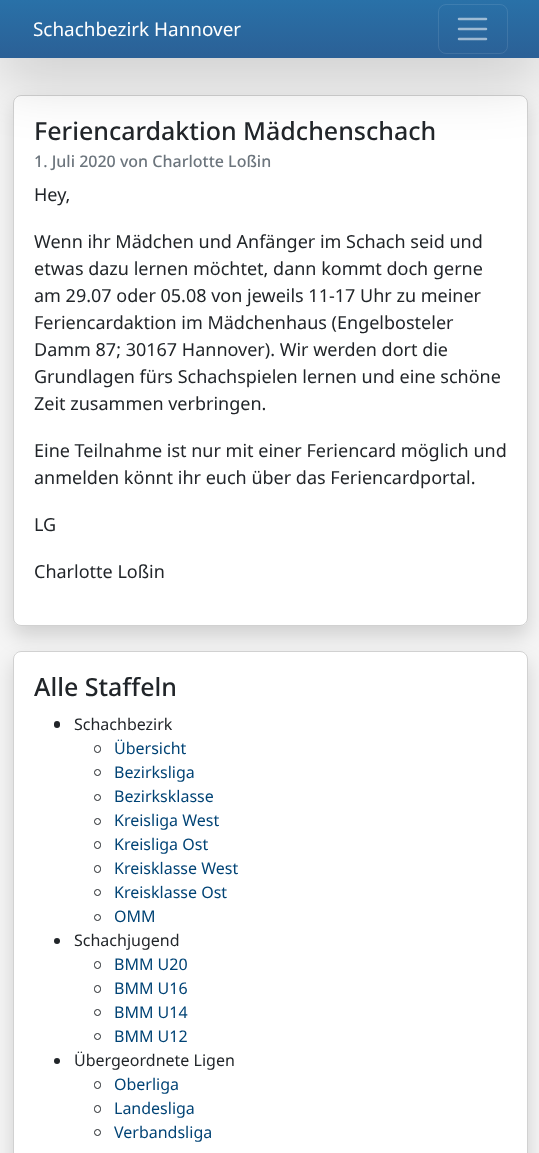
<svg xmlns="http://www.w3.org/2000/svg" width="539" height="1153">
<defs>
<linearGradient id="g1" gradientUnits="userSpaceOnUse" x1="270" y1="58" x2="270" y2="0"><stop offset="0" stop-color="#2b6096"/><stop offset="1" stop-color="#2971a8"/></linearGradient>
</defs>
<rect width="100%" height="100%" fill="#f5f5f5"/>
<rect x="13" y="105" width="515" height="531" rx="8" fill="#00000026" filter="blur(10px)"/>
<rect x="13" y="95" width="515" height="531" rx="8" fill="#fff"/>
<rect x="13.5" y="95.5" width="514" height="530" rx="7.5" fill="none" stroke="#0000002e"/>
<rect y="20" width="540" height="58" fill="#0000002e" filter="blur(30px)"/>
<rect width="539" height="58" fill="url(#g1)"/>
<text x="33" y="36" style="font-family:Noto Sans;font-size:18.9px;fill:#fff">Schachbezirk Hannover</text>
<rect x="438.5" y="4.5" width="69" height="49" rx="7.5" fill="none" stroke="#ffffff1a"/>
<path d="M459 19h27m-27 10h27m-27 10h27" fill="none" stroke="#ffffff8c" stroke-width="2.5" stroke-linecap="round"/>
<text x="34" y="140" style="font-family:Noto Sans;font-size:25px;font-weight:500;fill:#212529">Feriencardaktion Mädchenschach</text>
<text x="34" y="167" style="font-family:Noto Sans;font-size:16px;font-weight:500;fill:#6c757d">1. Juli 2020 von Charlotte Loßin</text>
<text x="34" y="201" style="font-family:Noto Sans;font-size:18px;fill:#212529">Hey,</text>
<text x="34" y="248" style="font-family:Noto Sans;font-size:18px;fill:#212529">Wenn ihr Mädchen und Anfänger im Schach seid und</text>
<text x="34" y="275" style="font-family:Noto Sans;font-size:18px;fill:#212529">etwas dazu lernen möchtet, dann kommt doch gerne</text>
<text x="34" y="302" style="font-family:Noto Sans;font-size:18px;fill:#212529">am 29.07 oder 05.08 von jeweils 11-17 Uhr zu meiner</text>
<text x="34" y="329" style="font-family:Noto Sans;font-size:18px;fill:#212529">Feriencardaktion im Mädchenhaus (Engelbosteler</text>
<text x="34" y="356" style="font-family:Noto Sans;font-size:18px;fill:#212529">Damm 87; 30167 Hannover). Wir werden dort die</text>
<text x="34" y="383" style="font-family:Noto Sans;font-size:18px;fill:#212529">Grundlagen fürs Schachspielen lernen und eine schöne</text>
<text x="34" y="410" style="font-family:Noto Sans;font-size:18px;fill:#212529">Zeit zusammen verbringen.</text>
<text x="34" y="457" style="font-family:Noto Sans;font-size:18px;fill:#212529">Eine Teilnahme ist nur mit einer Feriencard möglich und</text>
<text x="34" y="484" style="font-family:Noto Sans;font-size:18px;fill:#212529">anmelden könnt ihr euch über das Feriencardportal.</text>
<text x="34" y="531" style="font-family:Noto Sans;font-size:18px;fill:#212529">LG</text>
<text x="34" y="578" style="font-family:Noto Sans;font-size:18px;fill:#212529">Charlotte Loßin</text>
<rect x="13" y="661" width="515" height="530" rx="8" fill="#00000026" filter="blur(10px)"/>
<rect x="13" y="651" width="515" height="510" rx="8" fill="#fff"/>
<rect x="13.5" y="651.5" width="514" height="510" rx="7.5" fill="none" stroke="#0000002e"/>
<text x="34" y="696" style="font-family:Noto Sans;font-size:25px;font-weight:500;fill:#212529">Alle Staffeln</text>
<rect x="54" y="721" width="6" height="7" rx="3" fill="#212529"/>
<text x="74" y="730" style="font-family:Noto Sans;font-size:16px;fill:#212529">Schachbezirk</text>
<rect x="94.5" y="745.5" width="6" height="7" rx="3" fill="none" stroke="#212529"/>
<text x="114" y="754" style="font-family:Noto Sans;font-size:16px;fill:#004375">Übersicht</text>
<circle cx="97.5" cy="772.5" r="3" fill="none" stroke="#212529"/>
<text x="114" y="778" style="font-family:Noto Sans;font-size:16px;fill:#004375">Bezirksliga</text>
<circle cx="97.5" cy="797.5" r="3" fill="none" stroke="#212529"/>
<text x="114" y="802" style="font-family:Noto Sans;font-size:16px;fill:#004375">Bezirksklasse</text>
<circle cx="97.5" cy="821.5" r="3" fill="none" stroke="#212529"/>
<text x="114" y="826" style="font-family:Noto Sans;font-size:16px;fill:#004375">Kreisliga West</text>
<rect x="94.5" y="841.5" width="6" height="7" rx="3" fill="none" stroke="#212529"/>
<text x="114" y="850" style="font-family:Noto Sans;font-size:16px;fill:#004375">Kreisliga Ost</text>
<rect x="94.5" y="865.5" width="6" height="7" rx="3" fill="none" stroke="#212529"/>
<text x="114" y="874" style="font-family:Noto Sans;font-size:16px;fill:#004375">Kreisklasse West</text>
<circle cx="97.5" cy="892.5" r="3" fill="none" stroke="#212529"/>
<text x="114" y="898" style="font-family:Noto Sans;font-size:16px;fill:#004375">Kreisklasse Ost</text>
<circle cx="97.5" cy="917.5" r="3" fill="none" stroke="#212529"/>
<text x="114" y="922" style="font-family:Noto Sans;font-size:16px;fill:#004375">OMM</text>
<circle cx="57" cy="941" r="3" fill="#212529"/>
<text x="74" y="946" style="font-family:Noto Sans;font-size:16px;fill:#212529">Schachjugend</text>
<rect x="94.5" y="961.5" width="6" height="7" rx="3" fill="none" stroke="#212529"/>
<text x="114" y="970" style="font-family:Noto Sans;font-size:16px;fill:#004375">BMM U20</text>
<rect x="94.5" y="985.5" width="6" height="7" rx="3" fill="none" stroke="#212529"/>
<text x="114" y="994" style="font-family:Noto Sans;font-size:16px;fill:#004375">BMM U16</text>
<circle cx="97.5" cy="1012.5" r="3" fill="none" stroke="#212529"/>
<text x="114" y="1018" style="font-family:Noto Sans;font-size:16px;fill:#004375">BMM U14</text>
<circle cx="97.5" cy="1036.5" r="3" fill="none" stroke="#212529"/>
<text x="114" y="1042" style="font-family:Noto Sans;font-size:16px;fill:#004375">BMM U12</text>
<circle cx="57" cy="1061" r="3" fill="#212529"/>
<text x="74" y="1066" style="font-family:Noto Sans;font-size:16px;fill:#212529">Übergeordnete Ligen</text>
<rect x="94.5" y="1081.5" width="6" height="7" rx="3" fill="none" stroke="#212529"/>
<text x="114" y="1090" style="font-family:Noto Sans;font-size:16px;fill:#004375">Oberliga</text>
<rect x="94.5" y="1105.5" width="6" height="7" rx="3" fill="none" stroke="#212529"/>
<text x="114" y="1114" style="font-family:Noto Sans;font-size:16px;fill:#004375">Landesliga</text>
<circle cx="97.5" cy="1132.5" r="3" fill="none" stroke="#212529"/>
<text x="114" y="1138" style="font-family:Noto Sans;font-size:16px;fill:#004375">Verbandsliga</text>
</svg>
